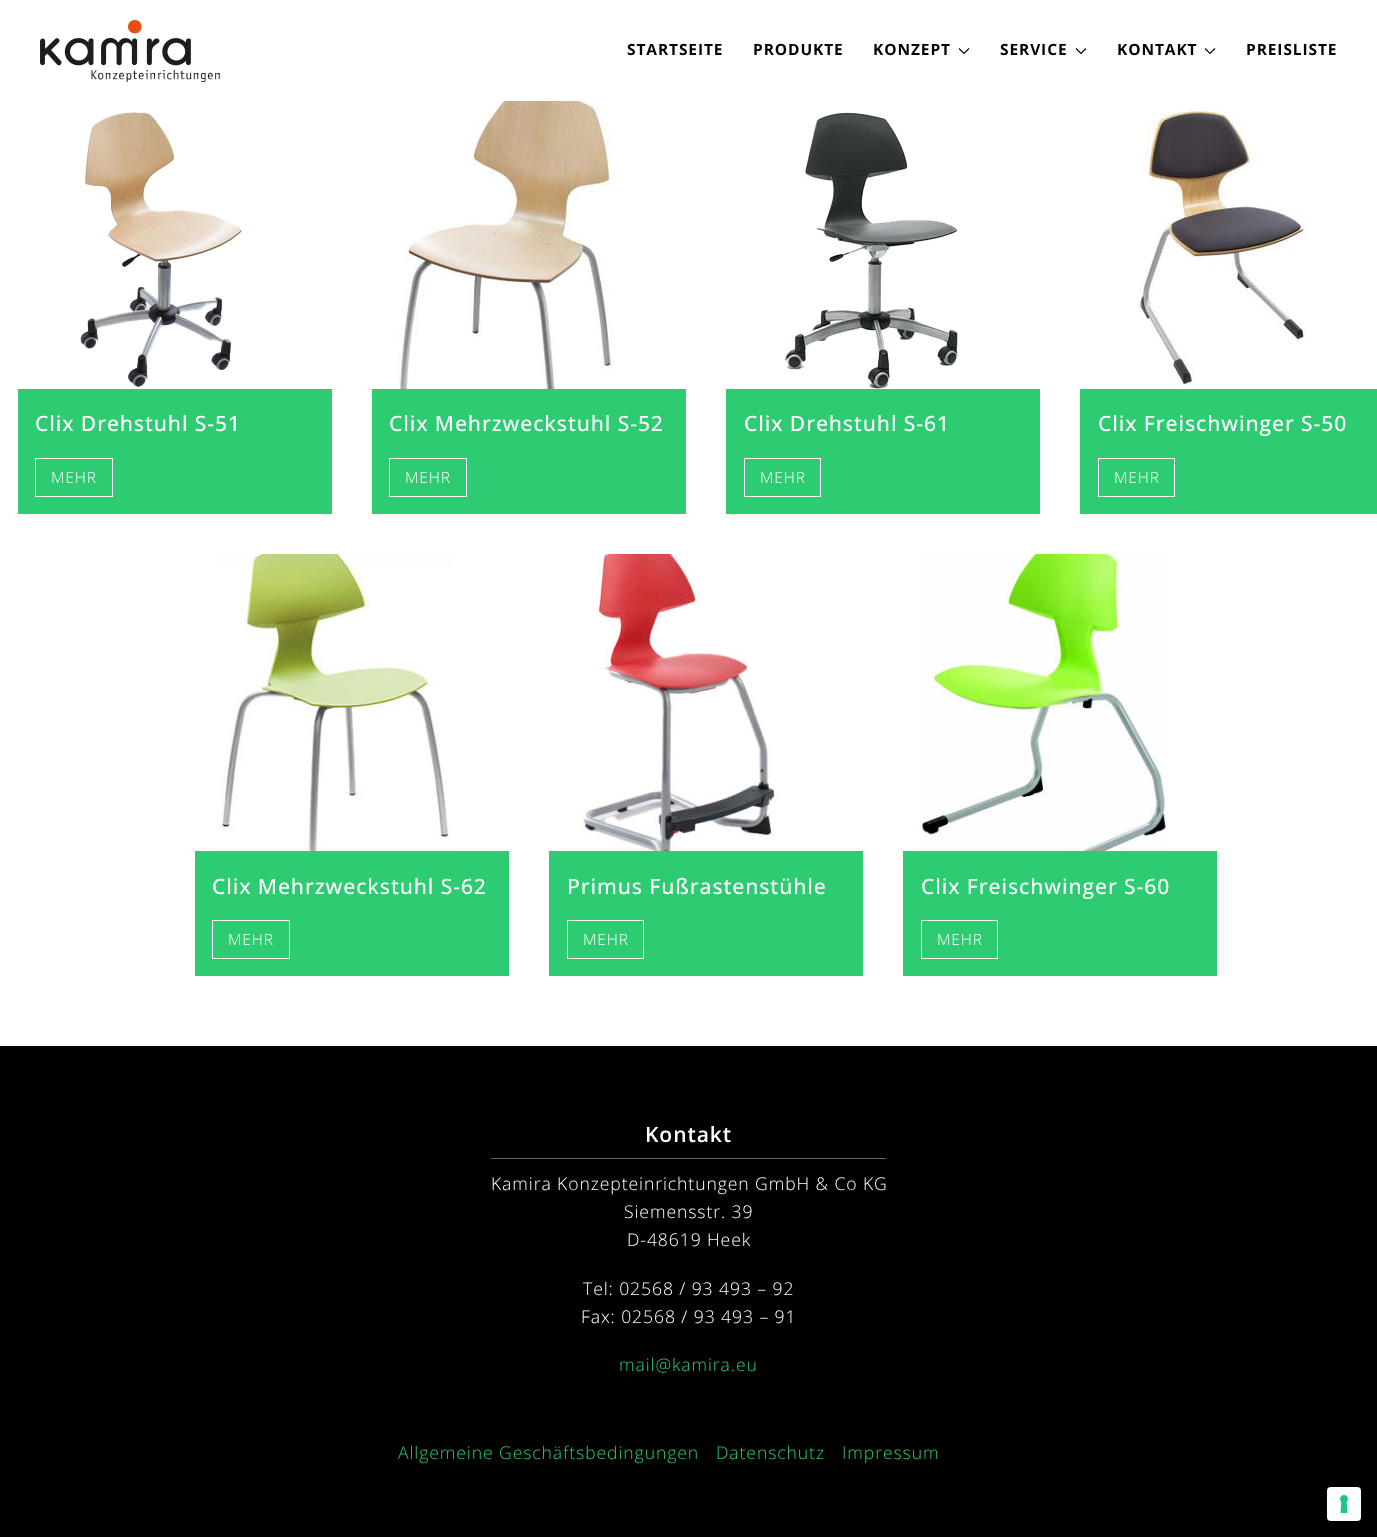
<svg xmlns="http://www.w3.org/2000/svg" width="1377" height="1537">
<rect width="100%" height="100%" fill="#fff"/>
<image x="40" y="20" width="180" height="62" href="media/1.png"/>
<text x="627" y="55" style="font-family:Open Sans;font-size:15.5px;font-weight:bold;letter-spacing:0.9px;fill:#000">STARTSEITE</text>
<text x="753" y="55" style="font-family:Open Sans;font-size:15.5px;font-weight:bold;letter-spacing:0.9px;fill:#000">PRODUKTE</text>
<text x="873" y="55" style="font-family:Open Sans;font-size:15.5px;font-weight:bold;letter-spacing:0.9px;fill:#000">KONZEPT</text>
<path d="M959 48.5l5 5l5-5" fill="none" stroke="#000" stroke-width="1.1"/>
<text x="1000" y="55" style="font-family:Open Sans;font-size:15.5px;font-weight:bold;letter-spacing:0.9px;fill:#000">SERVICE</text>
<path d="M1076 48.5l5 5l5-5" fill="none" stroke="#000" stroke-width="1.1"/>
<text x="1117" y="55" style="font-family:Open Sans;font-size:15.5px;font-weight:bold;letter-spacing:0.9px;fill:#000">KONTAKT</text>
<path d="M1205 48.5l5 5l5-5" fill="none" stroke="#000" stroke-width="1.1"/>
<text x="1246" y="55" style="font-family:Open Sans;font-size:15.5px;font-weight:bold;letter-spacing:0.9px;fill:#000">PREISLISTE</text>
<image x="76" y="107" width="166" height="280" href="media/2.png"/>
<rect x="18" y="389" width="314" height="125" fill="#2dcc72"/>
<text x="35" y="431" style="font-family:Open Sans;font-size:21.1px;font-weight:500;letter-spacing:0.9px;fill:#fff">Clix Drehstuhl S-51</text>
<rect x="35.5" y="458.5" width="77" height="38" fill="none" stroke="#fff"/>
<text x="51" y="483" style="font-family:Open Sans;font-size:15.5px;font-weight:300;letter-spacing:0.9px;fill:#fff">MEHR</text>
<image x="396" y="101" width="219" height="288" href="media/3.png"/>
<rect x="372" y="389" width="314" height="125" fill="#2dcc72"/>
<text x="389" y="431" style="font-family:Open Sans;font-size:21.1px;font-weight:500;letter-spacing:0.9px;fill:#fff">Clix Mehrzweckstuhl S-52</text>
<rect x="389.5" y="458.5" width="77" height="38" fill="none" stroke="#fff"/>
<text x="405" y="483" style="font-family:Open Sans;font-size:15.5px;font-weight:300;letter-spacing:0.9px;fill:#fff">MEHR</text>
<image x="785" y="112" width="174" height="277" href="media/4.png"/>
<rect x="726" y="389" width="314" height="125" fill="#2dcc72"/>
<text x="744" y="431" style="font-family:Open Sans;font-size:21.1px;font-weight:500;letter-spacing:0.9px;fill:#fff">Clix Drehstuhl S-61</text>
<rect x="744.5" y="458.5" width="76" height="38" fill="none" stroke="#fff"/>
<text x="760" y="483" style="font-family:Open Sans;font-size:15.5px;font-weight:300;letter-spacing:0.9px;fill:#fff">MEHR</text>
<image x="1138" y="106" width="170" height="281" href="media/5.png"/>
<rect x="1080" y="389" width="297" height="125" fill="#2dcc72"/>
<text x="1098" y="431" style="font-family:Open Sans;font-size:21.1px;font-weight:500;letter-spacing:0.9px;fill:#fff">Clix Freischwinger S-50</text>
<rect x="1098.5" y="458.5" width="76" height="38" fill="none" stroke="#fff"/>
<text x="1114" y="483" style="font-family:Open Sans;font-size:15.5px;font-weight:300;letter-spacing:0.9px;fill:#fff">MEHR</text>
<image x="216" y="554" width="237" height="297" href="media/6.png"/>
<rect x="195" y="851" width="314" height="125" fill="#2dcc72"/>
<text x="212" y="894" style="font-family:Open Sans;font-size:21.1px;font-weight:500;letter-spacing:0.9px;fill:#fff">Clix Mehrzweckstuhl S-62</text>
<rect x="212.5" y="920.5" width="77" height="38" fill="none" stroke="#fff"/>
<text x="228" y="945" style="font-family:Open Sans;font-size:15.5px;font-weight:300;letter-spacing:0.9px;fill:#fff">MEHR</text>
<image x="581" y="554" width="200" height="297" href="media/7.png"/>
<rect x="549" y="851" width="314" height="125" fill="#2dcc72"/>
<text x="567" y="894" style="font-family:Open Sans;font-size:21.1px;font-weight:500;letter-spacing:0.9px;fill:#fff">Primus Fußrastenstühle</text>
<rect x="567.5" y="920.5" width="76" height="38" fill="none" stroke="#fff"/>
<text x="583" y="945" style="font-family:Open Sans;font-size:15.5px;font-weight:300;letter-spacing:0.9px;fill:#fff">MEHR</text>
<image x="919" y="554" width="248" height="297" href="media/8.png"/>
<rect x="903" y="851" width="314" height="125" fill="#2dcc72"/>
<text x="921" y="894" style="font-family:Open Sans;font-size:21.1px;font-weight:500;letter-spacing:0.9px;fill:#fff">Clix Freischwinger S-60</text>
<rect x="921.5" y="920.5" width="76" height="38" fill="none" stroke="#fff"/>
<text x="937" y="945" style="font-family:Open Sans;font-size:15.5px;font-weight:300;letter-spacing:0.9px;fill:#fff">MEHR</text>
<rect y="1046" width="1377" height="491" fill="#000"/>
<rect x="491" y="1158" width="395" height="1" fill="#666"/>
<text x="645" y="1142" style="font-family:Open Sans;font-size:21.1px;font-weight:600;letter-spacing:0.9px;fill:#fff">Kontakt</text>
<text x="491" y="1190" style="font-family:Open Sans;font-size:17.6px;font-weight:300;letter-spacing:0.9px;fill:#fff">Kamira Konzepteinrichtungen GmbH &amp; Co KG</text>
<text x="624" y="1218" style="font-family:Open Sans;font-size:17.6px;font-weight:300;letter-spacing:0.9px;fill:#fff">Siemensstr. 39</text>
<text x="627" y="1246" style="font-family:Open Sans;font-size:17.6px;font-weight:300;letter-spacing:0.9px;fill:#fff">D-48619 Heek</text>
<text x="583" y="1295" style="font-family:Open Sans;font-size:17.6px;font-weight:300;letter-spacing:0.9px;fill:#fff">Tel: 02568 / 93 493 – 92</text>
<text x="581" y="1323" style="font-family:Open Sans;font-size:17.6px;font-weight:300;letter-spacing:0.9px;fill:#fff">Fax: 02568 / 93 493 – 91</text>
<text x="619" y="1371" style="font-family:Open Sans;font-size:17.6px;font-weight:300;letter-spacing:0.9px;fill:#2dcc72">mail@kamira.eu</text>
<text x="398" y="1459" style="font-family:Open Sans;font-size:17.6px;font-weight:300;letter-spacing:0.9px;fill:#2dcc72">Allgemeine Geschäftsbedingungen</text>
<text x="716" y="1459" style="font-family:Open Sans;font-size:17.6px;font-weight:300;letter-spacing:0.9px;fill:#2dcc72">Datenschutz</text>
<text x="842" y="1459" style="font-family:Open Sans;font-size:17.6px;font-weight:300;letter-spacing:0.9px;fill:#2dcc72">Impressum</text>
<rect x="1327" y="1487" width="34" height="34" rx="4" fill="#fff"/>
<image x="1340" y="1495" width="8" height="18" href="media/9.png"/>
</svg>
